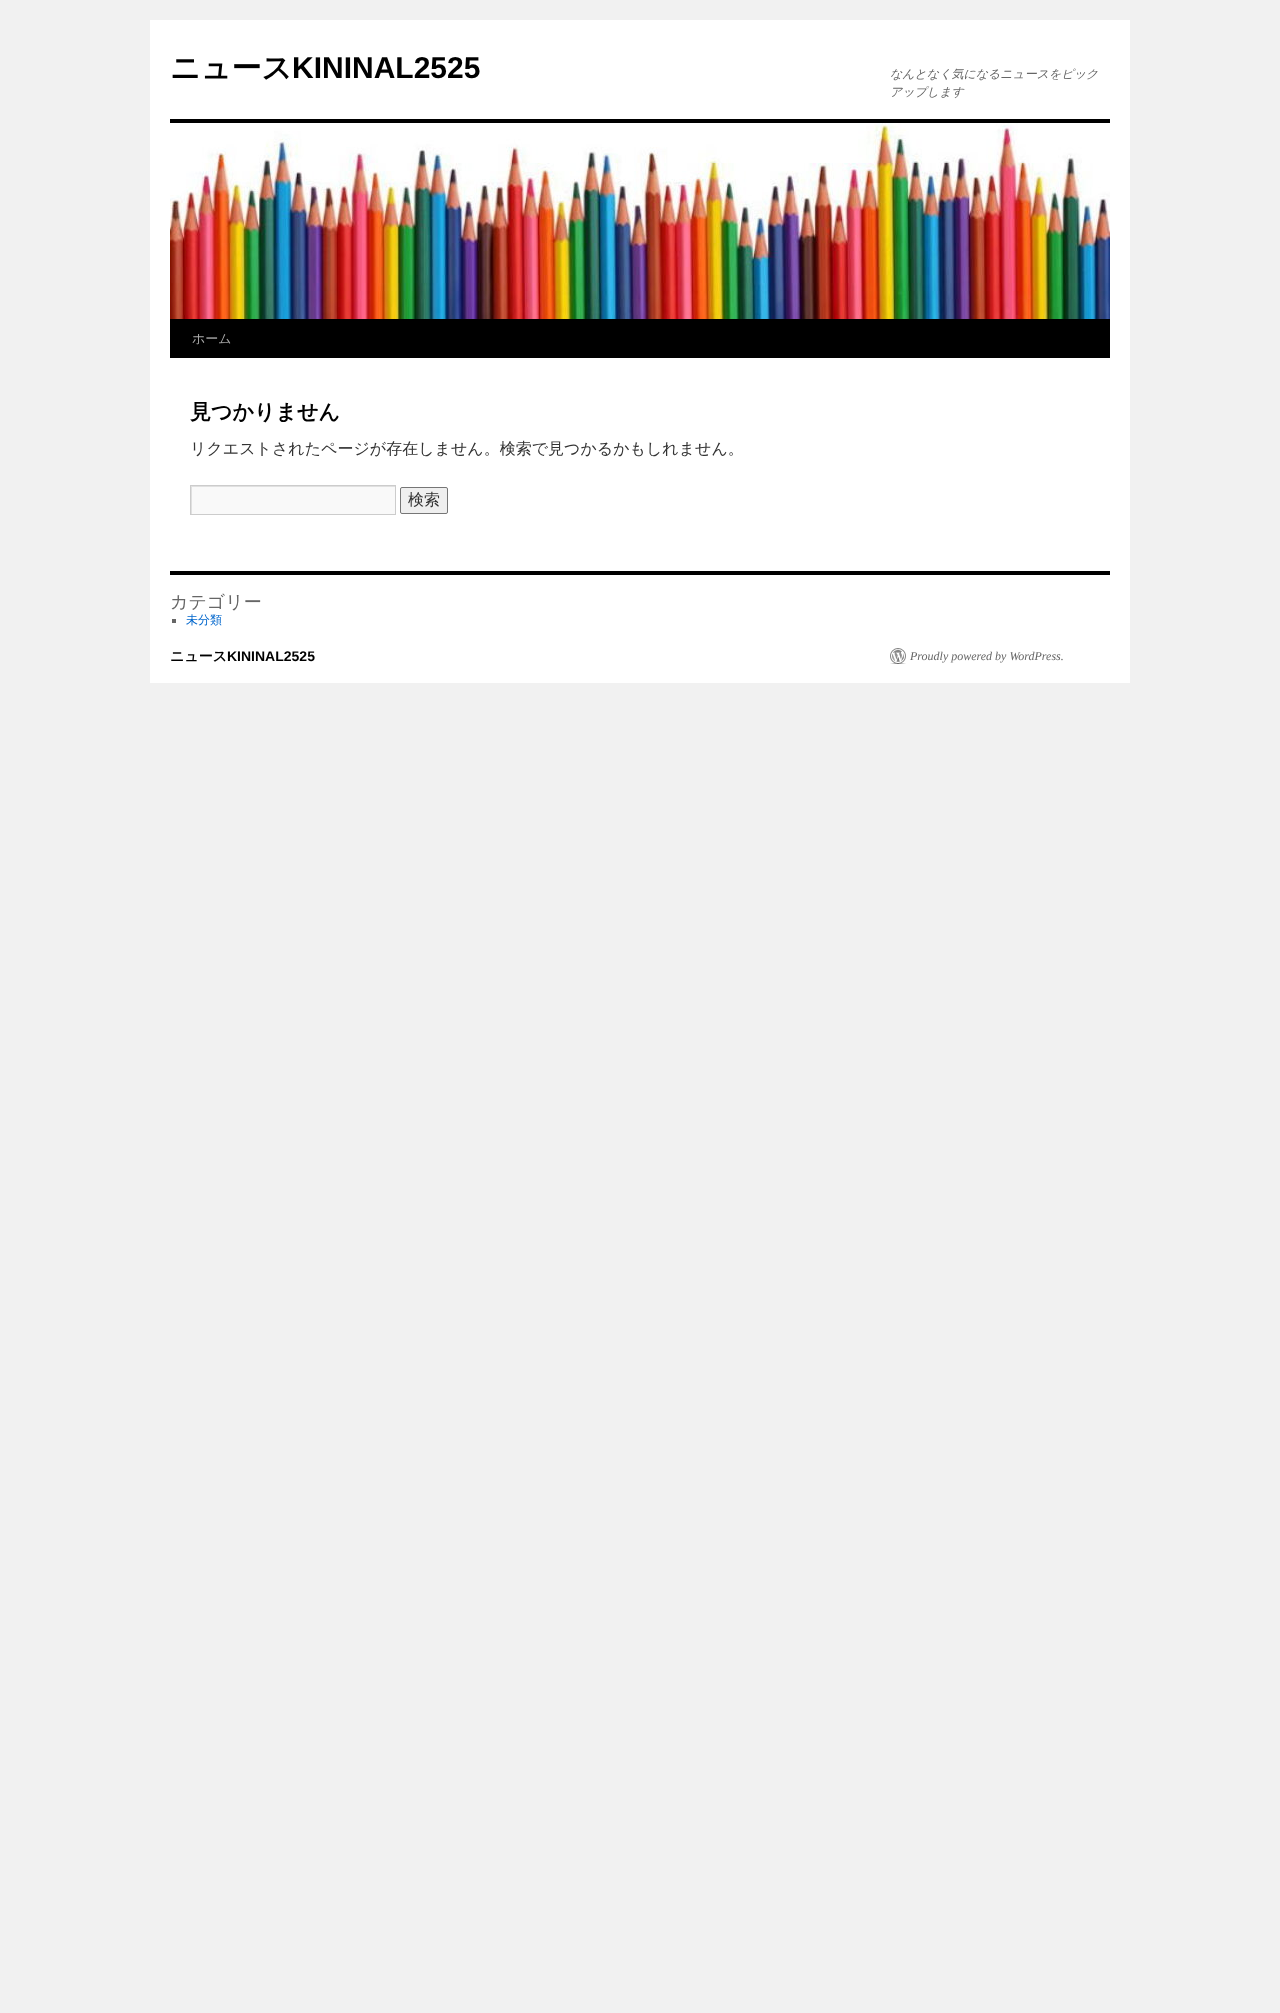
<svg xmlns="http://www.w3.org/2000/svg" width="1280" height="2013">
<defs>
<clipPath id="clip1"><rect x="191" y="486" width="204" height="28"/></clipPath>
</defs>
<rect width="100%" height="100%" fill="#f1f1f1"/>
<rect x="150" y="20" width="980" height="663" fill="#fff"/>
<text x="170" y="78" style="font-family:WenQuanYi Zen Hei;font-size:30px;font-weight:bold;fill:#000">ニュース</text>
<text x="292" y="78" style="font-family:Liberation Sans;font-size:30px;font-weight:bold;fill:#000">KININAL2525</text>
<text x="890" y="78" style="font-family:WenQuanYi Zen Hei;font-size:12px;font-weight:500;font-style:italic;fill:#666">なんとなく気になるニュースをピック</text>
<text x="890" y="96" style="font-family:WenQuanYi Zen Hei;font-size:12px;font-weight:500;font-style:italic;fill:#666">アップします</text>
<rect x="170" y="119" width="940" height="4" fill="#000"/>
<rect x="170" y="319" width="940" height="39" fill="#000"/>
<image x="170" y="123" width="940" height="196" href="media/1.png"/>
<text x="192" y="343" style="font-family:WenQuanYi Zen Hei;font-size:13px;font-weight:500;fill:#aaa">ホーム</text>
<text x="190" y="419" style="font-family:WenQuanYi Zen Hei;font-size:21px;font-weight:bold;fill:#000">見つかりません</text>
<text x="190" y="454" style="font-family:WenQuanYi Zen Hei;font-size:16px;font-weight:500;fill:#333">リクエストされたページが存在しません。検索で見つかるかもしれません。</text>
<rect x="192" y="487" width="203" height="27" fill="#f9f9f9"/>
<g clip-path="url(#clip1)">
<path d="M92 387h402v226h-402zm100 100h204v28h-204z" fill="#e0e0e0" fill-rule="evenodd"/>
</g>
<rect x="190.5" y="485.5" width="205" height="29" fill="none" stroke="#ccc"/>
<rect x="400.5" y="487.5" width="47" height="26" rx="1.5" fill="#efefef" stroke="#767676"/>
<text x="408" y="505" style="font-family:WenQuanYi Zen Hei;font-size:16px;font-weight:500;fill:#333">検索</text>
<rect x="170" y="571" width="940" height="4" fill="#000"/>
<text x="170" y="608" style="font-family:WenQuanYi Zen Hei;font-size:18px;font-weight:500;fill:#666">カテゴリー</text>
<rect x="172" y="619" width="4" height="4" fill="#666"/>
<text x="186" y="624" style="font-family:WenQuanYi Zen Hei;font-size:12px;font-weight:500;fill:#06c">未分類</text>
<text x="170" y="661" style="font-family:WenQuanYi Zen Hei;font-size:14px;font-weight:bold;fill:#000">ニュース</text>
<text x="227" y="661" style="font-family:Liberation Sans;font-size:14px;font-weight:bold;fill:#000">KININAL2525</text>
<image x="890" y="648" width="16" height="16" href="media/2.png"/>
<text x="910" y="660" style="font-family:Liberation Serif;font-size:12px;font-style:italic;fill:#666">Proudly powered by WordPress.</text>
</svg>
